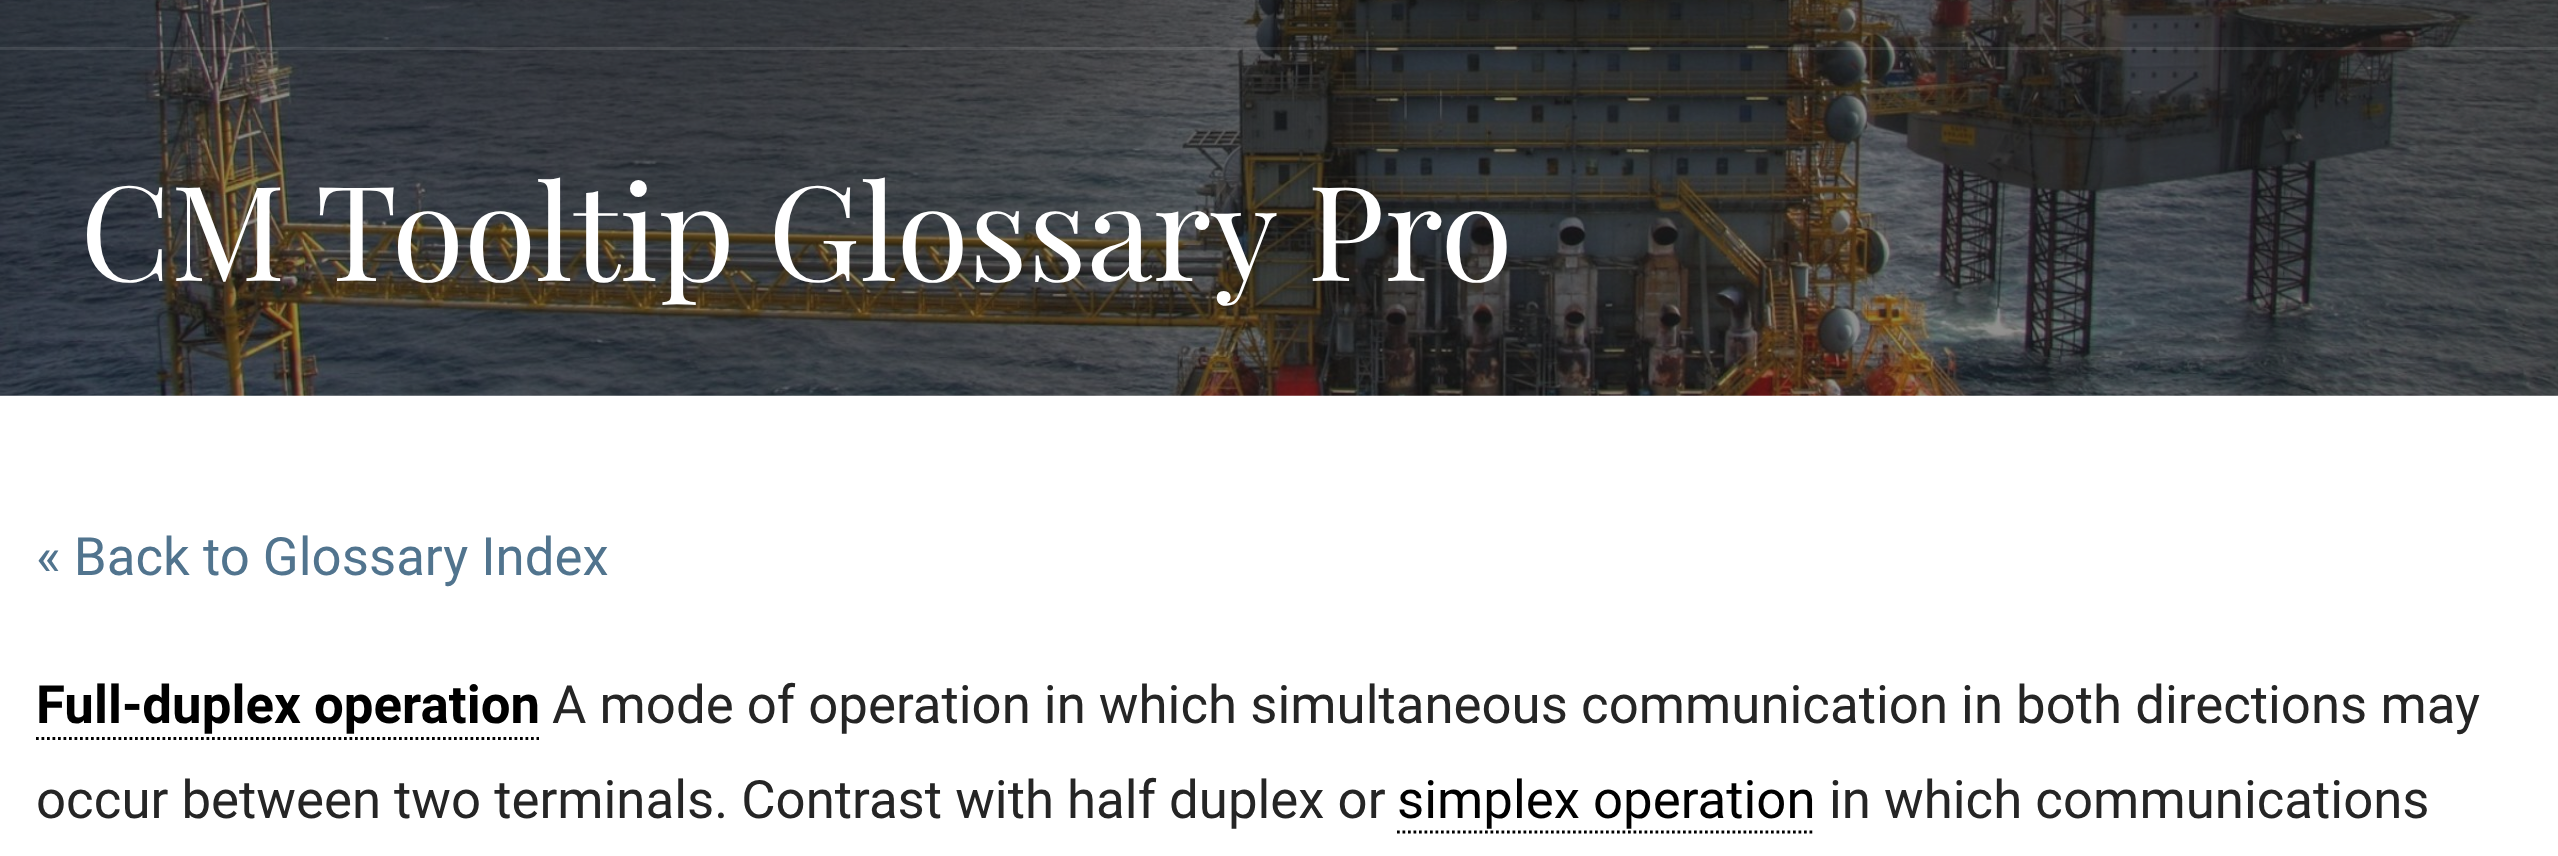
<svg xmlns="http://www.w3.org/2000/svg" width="2558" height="856">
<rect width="100%" height="100%" fill="#fff"/>
<image x="0" y="0" width="2558" height="396" href="media/1.png"/>
<rect y="47" width="2558" height="3" fill="#ffffff1a"/>
<text x="80" y="281" style="font-family:Playfair Display;font-size:132px;fill:#fff">CM Tooltip Glossary Pro</text>
<text x="36" y="575" style="font-family:Roboto;font-size:52.8px;fill:#51748e">« Back to Glossary Index</text>
<text x="36" y="723" style="font-family:Roboto;font-size:52.8px;font-weight:bold;fill:#000">Full-duplex operation</text>
<path d="M36 738.5h503" fill="none" stroke="#000" stroke-width="2.8" stroke-dasharray="2.75 2.75"/>
<text x="552" y="723" style="font-family:Roboto;font-size:52.8px;fill:#252525">A mode of operation in which simultaneous communication in both directions may</text>
<text x="36" y="818" style="font-family:Roboto;font-size:52.8px;fill:#252525">occur between two terminals. Contrast with half duplex or</text>
<text x="1397" y="818" style="font-family:Roboto;font-size:52.8px;fill:#000">simplex operation</text>
<path d="M1397 832h418" fill="none" stroke="#000" stroke-width="2.8" stroke-dasharray="2.75 2.75"/>
<text x="1829" y="818" style="font-family:Roboto;font-size:52.8px;fill:#252525">in which communications</text>
</svg>
